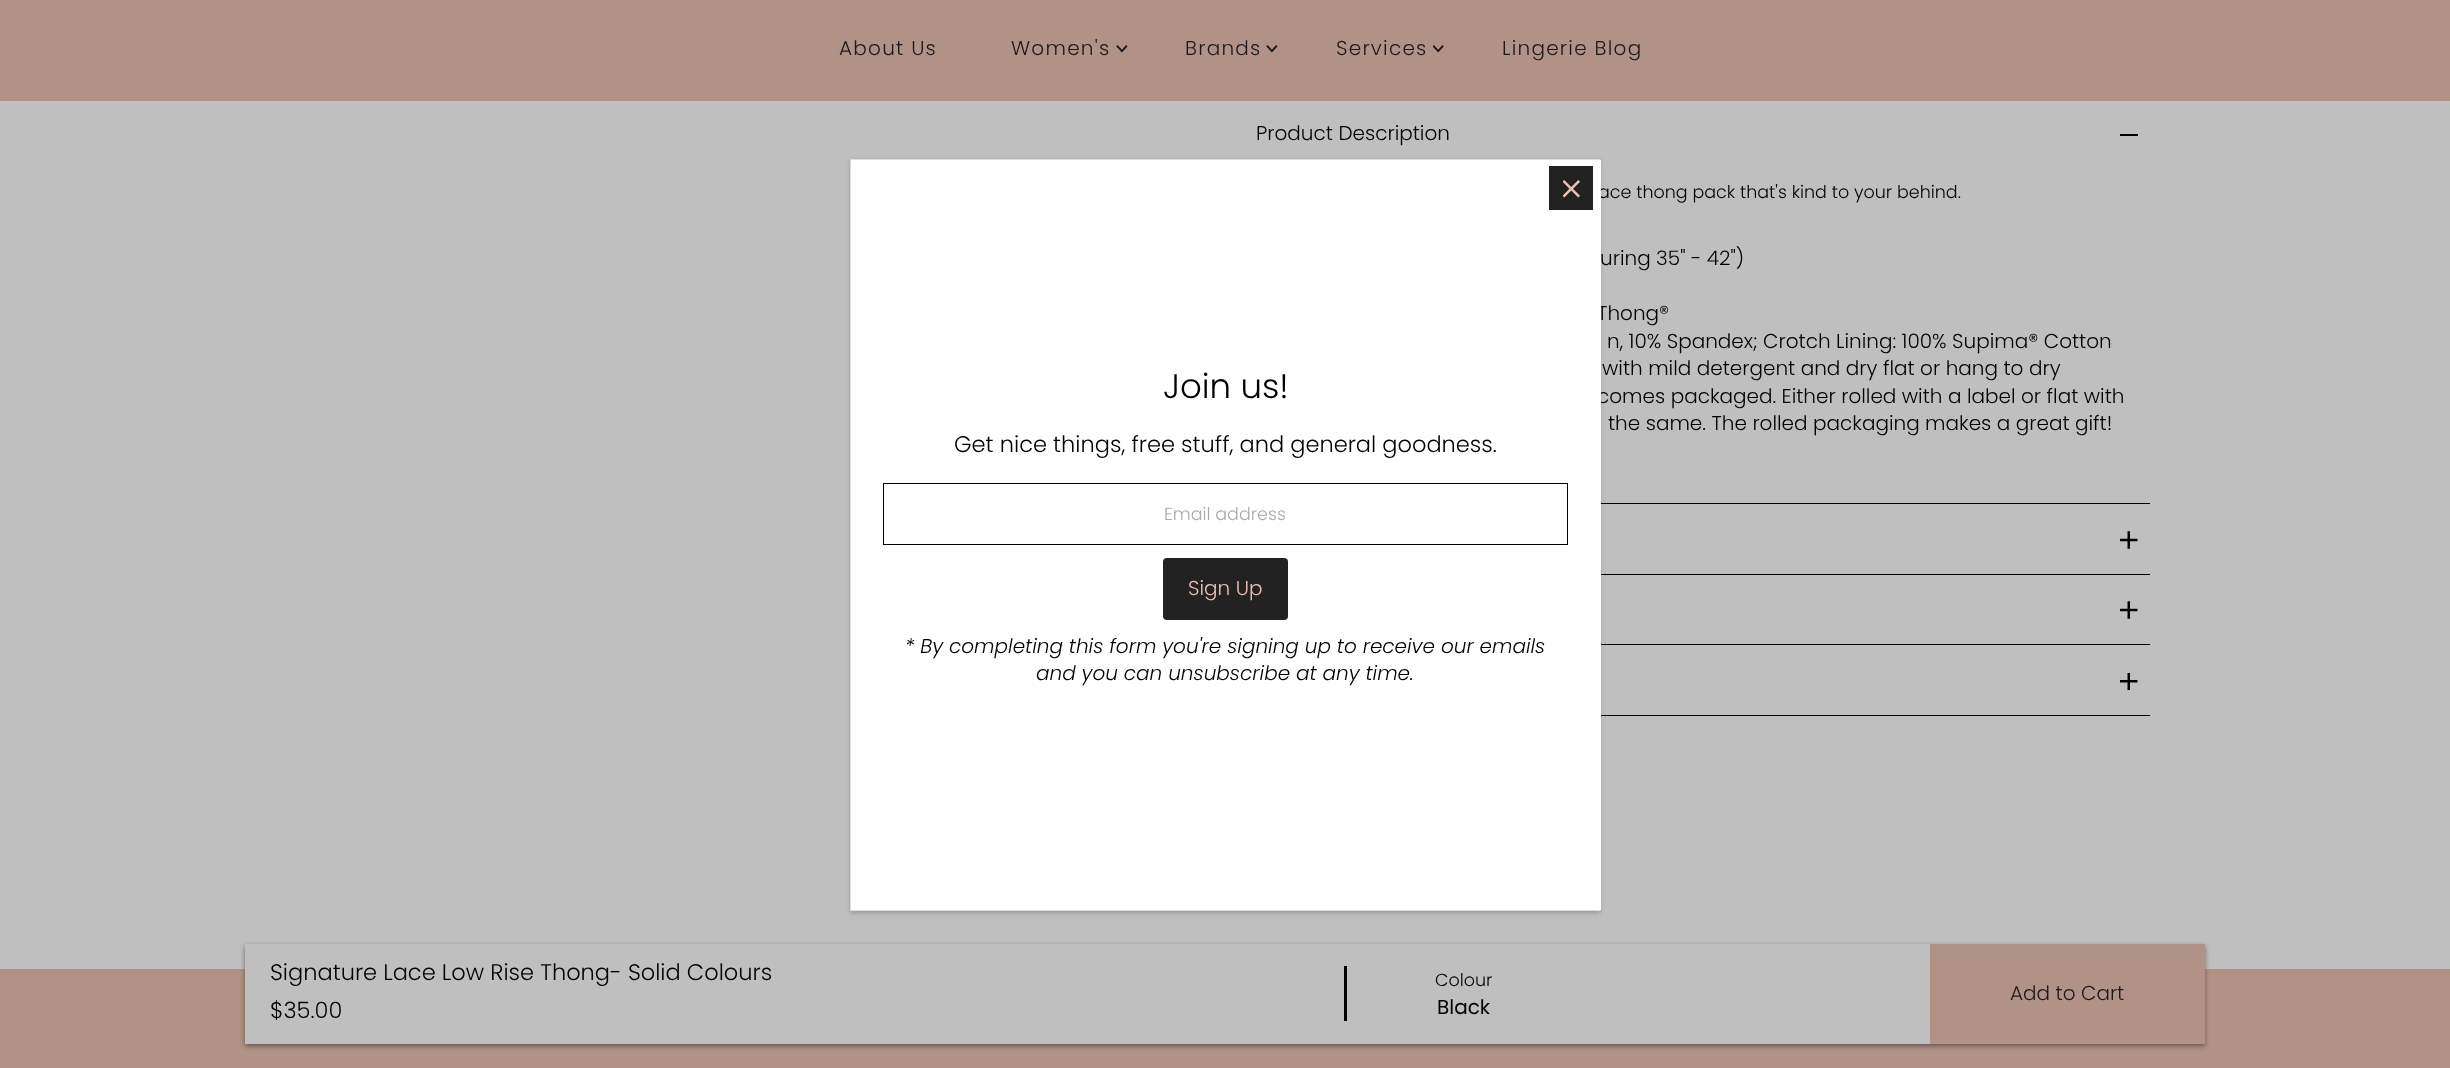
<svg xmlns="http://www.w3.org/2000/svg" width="2450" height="1068">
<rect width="100%" height="100%" fill="#bfbfbf"/>
<rect width="2450" height="101" fill="#b19286"/>
<text x="839" y="55" style="font-family:Poppins;font-size:20px;font-weight:300;letter-spacing:1.25px;fill:#1a1a1a">About Us</text>
<text x="1011" y="55" style="font-family:Poppins;font-size:20px;font-weight:300;letter-spacing:1.25px;fill:#1a1a1a">Women's</text>
<image x="1116" y="45" width="12" height="8" href="media/1.png"/>
<text x="1185" y="55" style="font-family:Poppins;font-size:20px;font-weight:300;letter-spacing:1.25px;fill:#1a1a1a">Brands</text>
<image x="1266" y="45" width="12" height="8" href="media/1.png"/>
<text x="1336" y="55" style="font-family:Poppins;font-size:20px;font-weight:300;letter-spacing:1.25px;fill:#1a1a1a">Services</text>
<image x="1433" y="45" width="11" height="8" href="media/2.png"/>
<text x="1502" y="55" style="font-family:Poppins;font-size:20px;font-weight:300;letter-spacing:1.25px;fill:#1a1a1a">Lingerie Blog</text>
<rect x="1601" y="715" width="549" height="1" fill="#000"/>
<text x="1256" y="140" style="font-family:Poppins;font-size:20px;font-weight:300;fill:#000">Product Description</text>
<rect x="2120" y="134" width="18" height="2" fill="#000"/>
<text x="1598" y="198" style="font-family:Poppins;font-size:17.5px;font-weight:300;fill:#000">ace thong pack that's kind to your behind.</text>
<text x="1600" y="265" style="font-family:Poppins;font-size:20px;font-weight:300;fill:#000">uring 35" - 42")</text>
<text x="1597" y="320" style="font-family:Poppins;font-size:20px;font-weight:300;fill:#000">Thong®</text>
<text x="1607" y="348" style="font-family:Poppins;font-size:20px;font-weight:300;fill:#000">n, 10% Spandex; Crotch Lining: 100% Supima® Cotton</text>
<text x="1602" y="375" style="font-family:Poppins;font-size:20px;font-weight:300;fill:#000">with mild detergent and dry flat or hang to dry</text>
<text x="1597" y="403" style="font-family:Poppins;font-size:20px;font-weight:300;fill:#000">comes packaged. Either rolled with a label or flat with</text>
<text x="1608" y="430" style="font-family:Poppins;font-size:20px;font-weight:300;fill:#000">the same. The rolled packaging makes a great gift!</text>
<rect x="1601" y="503" width="549" height="1" fill="#000"/>
<image x="2120" y="531" width="18" height="18" href="media/3.png"/>
<rect x="1601" y="574" width="549" height="1" fill="#000"/>
<image x="2120" y="601" width="18" height="18" href="media/3.png"/>
<rect x="1601" y="644" width="549" height="1" fill="#000"/>
<image x="2120" y="673" width="18" height="17" href="media/4.png"/>
<rect y="969" width="2450" height="99" fill="#b19286"/>
<rect x="245" y="946" width="1960" height="100" fill="#1a1a1a80" filter="blur(2.5px)"/>
<rect x="245" y="944" width="1685" height="100" fill="#bfbfbf"/>
<text x="270" y="980" style="font-family:Poppins;font-size:22.5px;font-weight:300;fill:#000">Signature Lace Low Rise Thong- Solid Colours</text>
<text x="270" y="1018" style="font-family:Poppins;font-size:22.5px;font-weight:300;fill:#000">$35.00</text>
<rect x="1344" y="966" width="3" height="55" fill="#000"/>
<text x="1435" y="986" style="font-family:Poppins;font-size:17.5px;font-weight:300;fill:#000">Colour</text>
<text x="1437" y="1014" style="font-family:Poppins;font-size:20px;fill:#000">Black</text>
<rect x="1930" y="944" width="275" height="100" fill="#b19286"/>
<text x="2010" y="1000" style="font-family:Poppins;font-size:20px;font-weight:300;fill:#1a1a1a">Add to Cart</text>
<rect x="850" y="160" width="750" height="753" fill="#00000033" filter="blur(2px)"/>
<rect x="850.5" y="159.5" width="749" height="751" fill="none" stroke="#ddd"/>
<rect x="851" y="160" width="750" height="750" fill="#fff"/>
<rect x="1549" y="166" width="44" height="44" fill="#222"/>
<image x="1563" y="180" width="17" height="18" href="media/5.png"/>
<text x="1163" y="398" style="font-family:Poppins;font-size:34px;font-weight:300;fill:#000">Join us!</text>
<text x="954" y="452" style="font-family:Poppins;font-size:22.5px;font-weight:300;fill:#000">Get nice things, free stuff, and general goodness.</text>
<rect x="883.5" y="483.5" width="684" height="61" fill="none" stroke="#000"/>
<text x="1164" y="520" style="font-family:Poppins;font-size:17.5px;font-weight:300;fill:#aaa">Email address</text>
<rect x="1163" y="558" width="125" height="62" rx="4" fill="#222"/>
<text x="1188" y="595" style="font-family:Poppins;font-size:20px;font-weight:300;fill:#ecc3b2">Sign Up</text>
<text x="905" y="653" style="font-family:Poppins;font-size:20px;font-weight:300;font-style:italic;fill:#000">* By completing this form you're signing up to receive our emails</text>
<text x="1036" y="680" style="font-family:Poppins;font-size:20px;font-weight:300;font-style:italic;fill:#000">and you can unsubscribe at any time.</text>
</svg>
